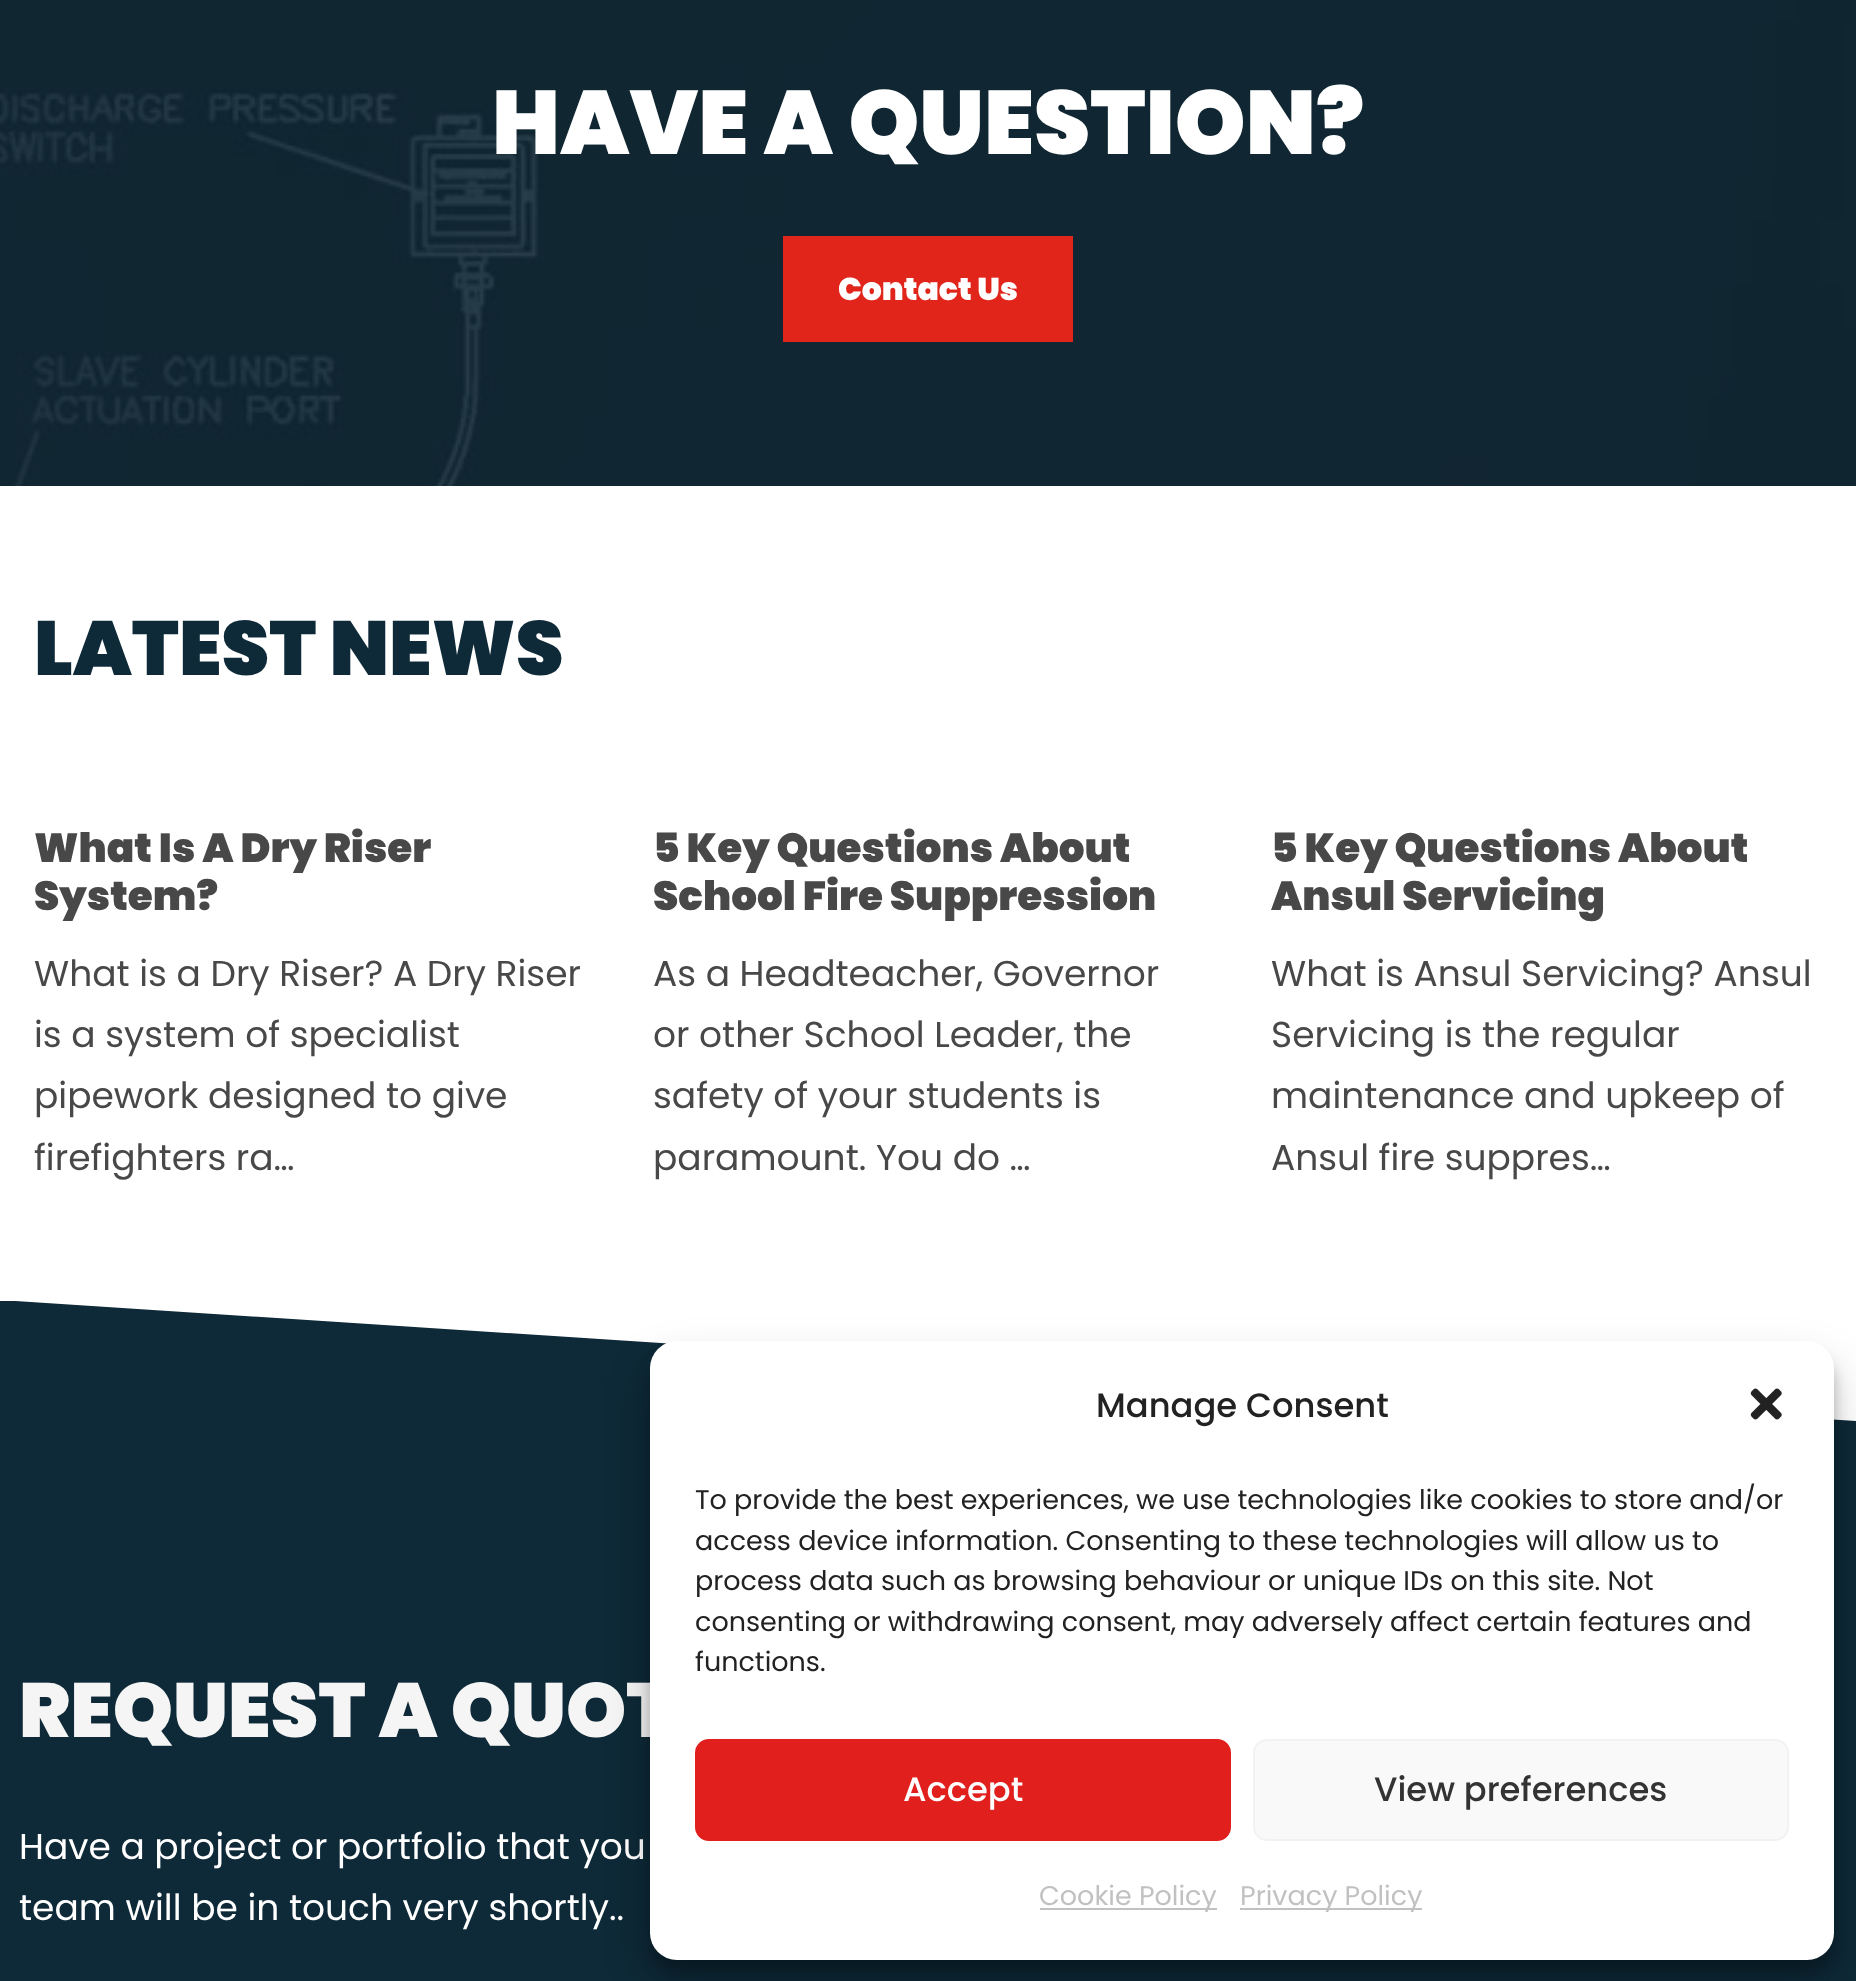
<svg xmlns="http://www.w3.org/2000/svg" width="1856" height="1981">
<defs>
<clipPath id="clip1"><rect y="1301" width="1856" height="121"/></clipPath>
</defs>
<rect width="100%" height="100%" fill="#fff"/>
<image x="0" y="0" width="1856" height="486" href="media/1.png"/>
<text x="492" y="154" style="font-family:Poppins;font-size:90px;font-weight:900;fill:#fff">HAVE A QUESTION?</text>
<rect x="783" y="236" width="290" height="106" fill="#e1251b"/>
<text x="838" y="300" style="font-family:Poppins;font-size:31.5px;font-weight:900;fill:#fff">Contact Us</text>
<text x="34" y="675" style="font-family:Poppins;font-size:76.5px;font-weight:900;fill:#0e2937">LATEST NEWS</text>
<text x="34" y="862" style="font-family:Poppins;font-size:40.5px;font-weight:900;fill:#484848">What Is A Dry Riser</text>
<text x="34" y="910" style="font-family:Poppins;font-size:40.5px;font-weight:900;fill:#484848">System?</text>
<text x="34" y="986" style="font-family:Poppins;font-size:36px;fill:#484848">What is a Dry Riser? A Dry Riser</text>
<text x="34" y="1047" style="font-family:Poppins;font-size:36px;fill:#484848">is a system of specialist</text>
<text x="34" y="1108" style="font-family:Poppins;font-size:36px;fill:#484848">pipework designed to give</text>
<text x="34" y="1170" style="font-family:Poppins;font-size:36px;fill:#484848">firefighters ra…</text>
<text x="653" y="862" style="font-family:Poppins;font-size:40.5px;font-weight:900;fill:#484848">5 Key Questions About</text>
<text x="653" y="910" style="font-family:Poppins;font-size:40.5px;font-weight:900;fill:#484848">School Fire Suppression</text>
<text x="653" y="986" style="font-family:Poppins;font-size:36px;fill:#484848">As a Headteacher, Governor</text>
<text x="653" y="1047" style="font-family:Poppins;font-size:36px;fill:#484848">or other School Leader, the</text>
<text x="653" y="1108" style="font-family:Poppins;font-size:36px;fill:#484848">safety of your students is</text>
<text x="653" y="1170" style="font-family:Poppins;font-size:36px;fill:#484848">paramount. You do …</text>
<text x="1271" y="862" style="font-family:Poppins;font-size:40.5px;font-weight:900;fill:#484848">5 Key Questions About</text>
<text x="1271" y="910" style="font-family:Poppins;font-size:40.5px;font-weight:900;fill:#484848">Ansul Servicing</text>
<text x="1271" y="986" style="font-family:Poppins;font-size:36px;fill:#484848">What is Ansul Servicing? Ansul</text>
<text x="1271" y="1047" style="font-family:Poppins;font-size:36px;fill:#484848">Servicing is the regular</text>
<text x="1271" y="1108" style="font-family:Poppins;font-size:36px;fill:#484848">maintenance and upkeep of</text>
<text x="1271" y="1170" style="font-family:Poppins;font-size:36px;fill:#484848">Ansul fire suppres…</text>
<rect y="1301" width="1856" height="680" fill="#0e2937"/>
<g clip-path="url(#clip1)">
<path d="M0 1300l1856 121v-121z" fill="#fff"/>
</g>
<text x="19" y="1737" style="font-family:Poppins;font-size:76.5px;font-weight:900;fill:#f5f5f5">REQUEST A QUOT</text>
<text x="19" y="1859" style="font-family:Poppins;font-size:36px;fill:#fff">Have a project or portfolio that you</text>
<text x="19" y="1920" style="font-family:Poppins;font-size:36px;fill:#fff">team will be in touch very shortly..</text>
<rect x="650" y="1355" width="1184" height="618" rx="27" fill="#0000003b" filter="blur(7px)"/>
<rect x="650" y="1364" width="1184" height="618" rx="27" fill="#00000030" filter="blur(22.5px)"/>
<rect x="650" y="1341" width="1184" height="619" rx="27" fill="#fff"/>
<text x="1096" y="1417" style="font-family:Poppins;font-size:33.75px;font-weight:500;fill:#222">Manage Consent</text>
<image x="1750" y="1388" width="32" height="32" href="media/2.png"/>
<text x="695" y="1509" style="font-family:Poppins;font-size:27px;fill:#222">To provide the best experiences, we use technologies like cookies to store and/or</text>
<text x="695" y="1550" style="font-family:Poppins;font-size:27px;fill:#222">access device information. Consenting to these technologies will allow us to</text>
<text x="695" y="1590" style="font-family:Poppins;font-size:27px;fill:#222">process data such as browsing behaviour or unique IDs on this site. Not</text>
<text x="695" y="1631" style="font-family:Poppins;font-size:27px;fill:#222">consenting or withdrawing consent, may adversely affect certain features and</text>
<text x="695" y="1671" style="font-family:Poppins;font-size:27px;fill:#222">functions.</text>
<rect x="696" y="1740" width="534" height="100" rx="13" fill="#e11f1c" stroke="#e11f1c" stroke-width="2"/>
<text x="903" y="1801" style="font-family:Poppins;font-size:33.75px;font-weight:500;fill:#fff">Accept</text>
<rect x="1254" y="1740" width="534" height="100" rx="13" fill="#f9f9f9" stroke="#f2f2f2" stroke-width="2"/>
<text x="1374" y="1801" style="font-family:Poppins;font-size:33.75px;font-weight:500;fill:#333">View preferences</text>
<rect x="1040" y="1908" width="177" height="2" fill="#c1c1c1"/>
<text x="1039" y="1905" style="font-family:Poppins;font-size:27px;fill:#c1c1c1">Cookie Policy</text>
<rect x="1240" y="1908" width="182" height="2" fill="#c1c1c1"/>
<text x="1240" y="1905" style="font-family:Poppins;font-size:27px;fill:#c1c1c1">Privacy Policy</text>
</svg>
